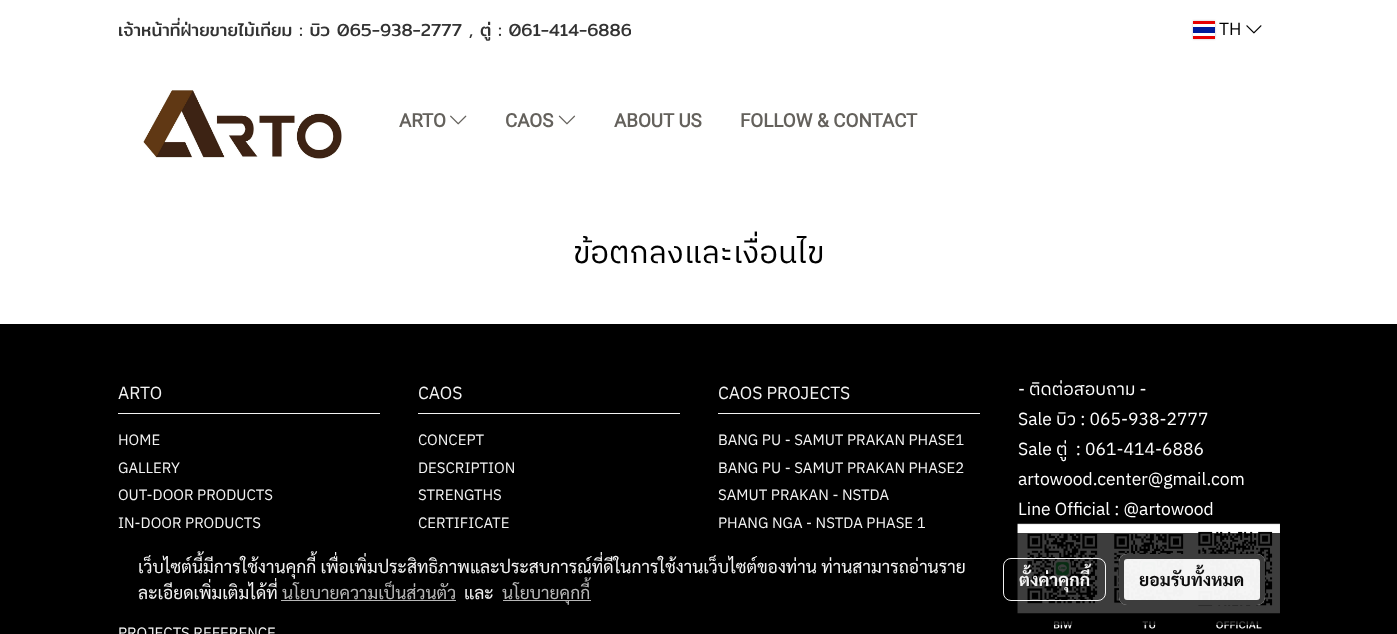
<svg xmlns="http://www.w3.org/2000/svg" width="1397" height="634">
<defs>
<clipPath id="clip1"><rect x="118" y="13" width="513" height="36"/></clipPath>
</defs>
<rect width="100%" height="100%" fill="#fff"/>
<g clip-path="url(#clip1)">
<text x="118" y="36" style="font-family:Mitr;font-size:17.5px;fill:#333">เจ้าหน้าที่ฝ่ายขายไม้เทียม : บิว 065-938-2777 , ตู่ : 061-414-6886</text>
</g>
<rect x="1193" y="21" width="22" height="18" fill="#00000040" filter="blur(1px)"/>
<rect x="1193" y="24" width="22" height="12" fill="#fff"/>
<rect x="1193" y="27" width="22" height="6" fill="#001b9a"/>
<rect x="1193" y="21" width="22" height="3" fill="#e70000"/>
<rect x="1193" y="36" width="22" height="3" fill="#e70000"/>
<text x="1219" y="35" style="font-family:IBM Plex Sans Thai;font-size:17.5px;fill:#000">TH</text>
<image x="1246" y="25" width="16" height="9" href="media/1.png"/>
<image x="143" y="90" width="199" height="69" href="media/2.png"/>
<text x="399" y="127" style="font-family:Roboto;font-size:18.75px;font-weight:bold;fill:#64615c">ARTO</text>
<image x="450" y="115" width="17" height="10" href="media/3.png"/>
<text x="505" y="127" style="font-family:Roboto;font-size:18.75px;font-weight:bold;fill:#64615c">CAOS</text>
<image x="558" y="115" width="18" height="10" href="media/4.png"/>
<text x="614" y="127" style="font-family:Roboto;font-size:18.75px;font-weight:bold;fill:#64615c">ABOUT US</text>
<text x="740" y="127" style="font-family:Roboto;font-size:18.75px;font-weight:bold;fill:#64615c">FOLLOW &amp; CONTACT</text>
<text x="573" y="263" style="font-family:IBM Plex Sans Thai;font-size:31.25px;fill:#000">ข้อตกลงและเงื่อนไข</text>
<rect y="324" width="1397" height="310" fill="#000"/>
<rect x="118" y="413" width="262" height="1" fill="#f3f3f3"/>
<text x="118" y="399" style="font-family:IBM Plex Sans Thai;font-size:17.5px;fill:#f3f3f3">ARTO</text>
<text x="118" y="445" style="font-family:IBM Plex Sans Thai;font-size:15px;fill:#f3f3f3">HOME</text>
<text x="118" y="473" style="font-family:IBM Plex Sans Thai;font-size:15px;fill:#f3f3f3">GALLERY</text>
<text x="118" y="500" style="font-family:IBM Plex Sans Thai;font-size:15px;fill:#f3f3f3">OUT-DOOR PRODUCTS</text>
<text x="118" y="528" style="font-family:IBM Plex Sans Thai;font-size:15px;fill:#f3f3f3">IN-DOOR PRODUCTS</text>
<text x="118" y="638" style="font-family:IBM Plex Sans Thai;font-size:15px;fill:#f3f3f3">PROJECTS REFERENCE</text>
<rect x="418" y="413" width="262" height="1" fill="#f3f3f3"/>
<text x="418" y="399" style="font-family:IBM Plex Sans Thai;font-size:17.5px;fill:#f3f3f3">CAOS</text>
<text x="418" y="445" style="font-family:IBM Plex Sans Thai;font-size:15px;fill:#f3f3f3">CONCEPT</text>
<text x="418" y="473" style="font-family:IBM Plex Sans Thai;font-size:15px;fill:#f3f3f3">DESCRIPTION</text>
<text x="418" y="500" style="font-family:IBM Plex Sans Thai;font-size:15px;fill:#f3f3f3">STRENGTHS</text>
<text x="418" y="528" style="font-family:IBM Plex Sans Thai;font-size:15px;fill:#f3f3f3">CERTIFICATE</text>
<rect x="718" y="413" width="262" height="1" fill="#f3f3f3"/>
<text x="718" y="399" style="font-family:IBM Plex Sans Thai;font-size:17.5px;fill:#f3f3f3">CAOS PROJECTS</text>
<text x="718" y="445" style="font-family:IBM Plex Sans Thai;font-size:15px;fill:#f3f3f3">BANG PU - SAMUT PRAKAN PHASE1</text>
<text x="718" y="473" style="font-family:IBM Plex Sans Thai;font-size:15px;fill:#f3f3f3">BANG PU - SAMUT PRAKAN PHASE2</text>
<text x="718" y="500" style="font-family:IBM Plex Sans Thai;font-size:15px;fill:#f3f3f3">SAMUT PRAKAN - NSTDA</text>
<text x="718" y="528" style="font-family:IBM Plex Sans Thai;font-size:15px;fill:#f3f3f3">PHANG NGA - NSTDA PHASE 1</text>
<text x="1018" y="395" style="font-family:IBM Plex Sans Thai;font-size:17.5px;fill:#fff">- ติดต่อสอบถาม -</text>
<text x="1018" y="425" style="font-family:IBM Plex Sans Thai;font-size:17.5px;fill:#fff">Sale บิว : 065-938-2777</text>
<text x="1018" y="455" style="font-family:IBM Plex Sans Thai;font-size:17.5px;fill:#fff" xml:space="preserve">Sale ตู่  : 061-414-6886</text>
<text x="1018" y="485" style="font-family:IBM Plex Sans Thai;font-size:17.5px;fill:#fff">artowood.center@gmail.com</text>
<text x="1018" y="515" style="font-family:IBM Plex Sans Thai;font-size:17.5px;fill:#fff">Line Official : @artowood</text>
<image x="1017" y="523" width="263" height="106" href="media/5.png"/>
<rect x="99" y="533" width="1200" height="92" rx="10" fill="#000000c2"/>
<text x="138" y="573" style="font-family:Sarabun;font-size:17.5px;fill:#f3f3f3">เว็บไซต์นี้มีการใช้งานคุกกี้ เพื่อเพิ่มประสิทธิภาพและประสบการณ์ที่ดีในการใช้งานเว็บไซต์ของท่าน ท่านสามารถอ่านราย</text>
<text x="138" y="599" style="font-family:Sarabun;font-size:17.5px;fill:#f3f3f3">ละเอียดเพิ่มเติมได้ที่</text>
<text x="282" y="599" style="font-family:Sarabun;font-size:17.5px;fill:#b8b8b8">นโยบายความเป็นส่วนตัว</text>
<rect x="281" y="600" width="175" height="1" fill="#b8b8b8"/>
<text x="464" y="599" style="font-family:Sarabun;font-size:17.5px;fill:#f3f3f3">และ</text>
<rect x="503" y="600" width="88" height="1" fill="#b8b8b8"/>
<text x="502" y="599" style="font-family:Sarabun;font-size:17.5px;fill:#b8b8b8">นโยบายคุกกี้</text>
<rect x="1003.5" y="558.5" width="102" height="42" rx="7.5" fill="none" stroke="#fffffff2"/>
<text x="1019" y="586" style="font-family:Sarabun;font-size:17.5px;font-weight:bold;fill:#f3f3f3">ตั้งค่าคุกกี้</text>
<rect x="1119" y="554" width="146" height="51" rx="8" fill="#fffffff2"/>
<rect x="1121.5" y="556.5" width="141" height="46" rx="5.5" fill="none" stroke="#333333f2" stroke-width="5"/>
<text x="1139" y="586" style="font-family:Sarabun;font-size:17.5px;font-weight:bold;fill:#0c0c0c">ยอมรับทั้งหมด</text>
</svg>
